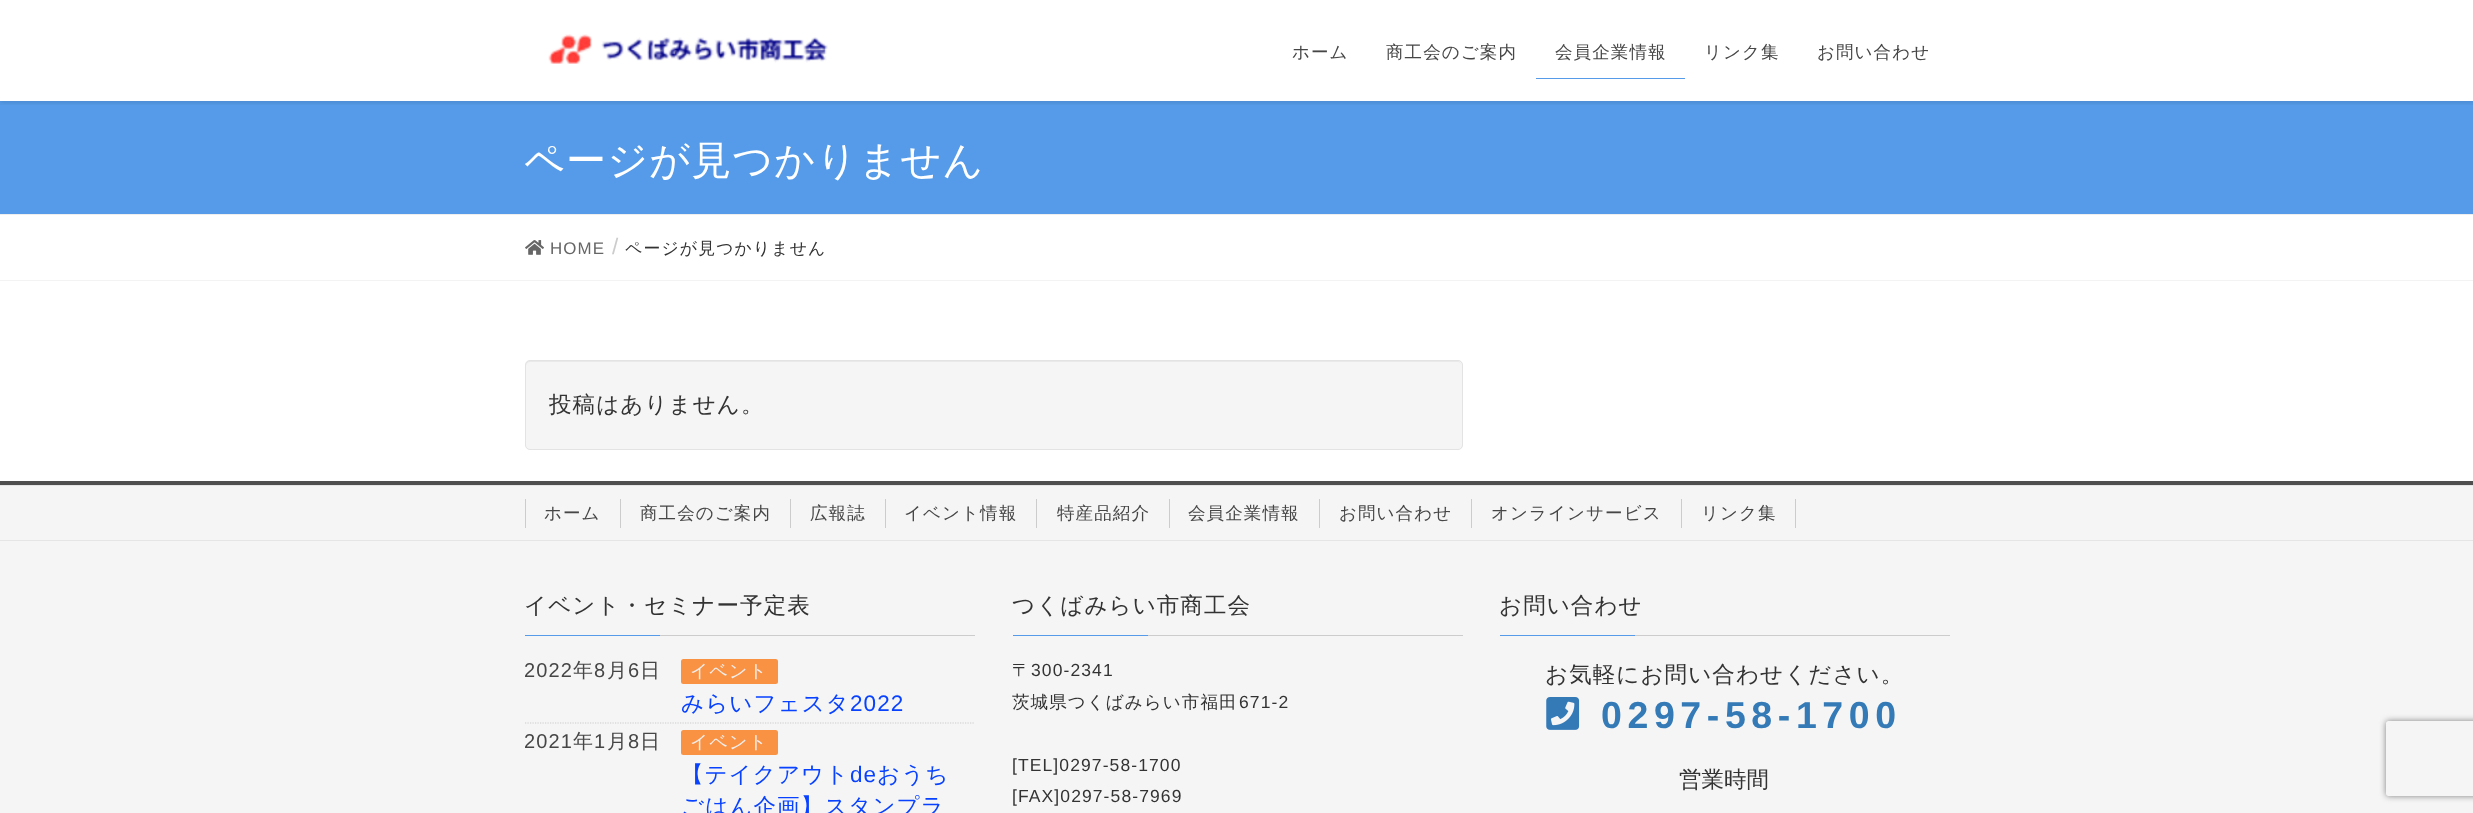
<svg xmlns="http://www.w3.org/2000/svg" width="2473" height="813">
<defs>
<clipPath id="clip1"><rect x="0" y="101" width="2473" height="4"/></clipPath>
<clipPath id="clip2"><path d="M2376 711h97v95h-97zm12.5 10h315c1.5 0 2.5 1 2.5 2.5v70c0 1.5-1 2.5-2.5 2.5h-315c-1.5 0-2.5-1-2.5-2.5v-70c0-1.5 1-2.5 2.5-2.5z" clip-rule="evenodd"/></clipPath>
</defs>
<rect width="100%" height="100%" fill="#fff"/>
<rect y="101" width="2473" height="113" fill="#559be9"/>
<g clip-path="url(#clip1)">
<rect y="1" width="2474" height="102" fill="#0000001a" filter="blur(2px)"/>
</g>
<image x="548" y="34" width="280" height="30" href="media/1.png"/>
<text x="1292" y="58" style="font-family:WenQuanYi Zen Hei;font-size:17.5px;font-weight:500;letter-spacing:1.1px;fill:#464646">ホーム</text>
<text x="1386" y="58" style="font-family:WenQuanYi Zen Hei;font-size:17.5px;font-weight:500;letter-spacing:1.1px;fill:#464646">商工会のご案内</text>
<text x="1555" y="58" style="font-family:WenQuanYi Zen Hei;font-size:17.5px;font-weight:500;letter-spacing:1.1px;fill:#464646">会員企業情報</text>
<rect x="1536" y="78" width="149" height="1" fill="#559be9"/>
<text x="1704" y="58" style="font-family:WenQuanYi Zen Hei;font-size:17.5px;font-weight:500;letter-spacing:1.1px;fill:#464646">リンク集</text>
<text x="1817" y="58" style="font-family:WenQuanYi Zen Hei;font-size:17.5px;font-weight:500;letter-spacing:1.1px;fill:#464646">お問い合わせ</text>
<rect y="214" width="2473" height="1" fill="#eee"/>
<text x="524" y="174" style="font-family:WenQuanYi Zen Hei;font-size:40px;font-weight:500;letter-spacing:1.1px;fill:#fff">ページが見つかりません</text>
<rect y="280" width="2473" height="1" fill="#f3f3f3"/>
<image x="525" y="240" width="19" height="15" href="media/2.png"/>
<text x="550" y="254" style="font-family:Liberation Sans;font-size:16.9px;letter-spacing:1.1px;fill:#666">HOME</text>
<text x="612" y="254" style="font-family:Liberation Sans;font-size:22.5px;letter-spacing:1.1px;fill:#ccc">/</text>
<text x="625" y="254" style="font-family:WenQuanYi Zen Hei;font-size:16.9px;font-weight:500;letter-spacing:1.1px;fill:#333">ページが見つかりません</text>
<rect x="525" y="360" width="938" height="90" rx="5" fill="#f5f5f5"/>
<path d="M530 362h928c2 0 3 2 3 4c0-3-1-5-4-5h-927c-3 0-4 2-4 5c0-2 2-4 4-4z" fill="#e9e9e9"/>
<rect x="525.5" y="360.5" width="937" height="89" rx="4.5" fill="none" stroke="#e3e3e3"/>
<text x="549" y="412" style="font-family:WenQuanYi Zen Hei;font-size:22.5px;font-weight:500;letter-spacing:1.1px;fill:#333">投稿はありません。</text>
<rect y="486" width="2473" height="327" fill="#f5f5f5"/>
<rect y="481" width="2473" height="4" fill="#4f4f4f"/>
<rect y="485" width="2473" height="1" fill="#e5e5e5"/>
<rect y="540" width="2473" height="1" fill="#e5e5e5"/>
<rect x="525" y="499" width="1" height="29" fill="#ccc"/>
<text x="544" y="519" style="font-family:WenQuanYi Zen Hei;font-size:17.5px;font-weight:500;letter-spacing:1.1px;fill:#464646">ホーム</text>
<rect x="620" y="499" width="1" height="29" fill="#ccc"/>
<text x="640" y="519" style="font-family:WenQuanYi Zen Hei;font-size:17.5px;font-weight:500;letter-spacing:1.1px;fill:#464646">商工会のご案内</text>
<rect x="790" y="499" width="1" height="29" fill="#ccc"/>
<text x="810" y="519" style="font-family:WenQuanYi Zen Hei;font-size:17.5px;font-weight:500;letter-spacing:1.1px;fill:#464646">広報誌</text>
<rect x="885" y="499" width="1" height="29" fill="#ccc"/>
<text x="904" y="519" style="font-family:WenQuanYi Zen Hei;font-size:17.5px;font-weight:500;letter-spacing:1.1px;fill:#464646">イベント情報</text>
<rect x="1036" y="499" width="1" height="29" fill="#ccc"/>
<text x="1057" y="519" style="font-family:WenQuanYi Zen Hei;font-size:17.5px;font-weight:500;letter-spacing:1.1px;fill:#464646">特産品紹介</text>
<rect x="1169" y="499" width="1" height="29" fill="#ccc"/>
<text x="1188" y="519" style="font-family:WenQuanYi Zen Hei;font-size:17.5px;font-weight:500;letter-spacing:1.1px;fill:#464646">会員企業情報</text>
<rect x="1319" y="499" width="1" height="29" fill="#ccc"/>
<text x="1339" y="519" style="font-family:WenQuanYi Zen Hei;font-size:17.5px;font-weight:500;letter-spacing:1.1px;fill:#464646">お問い合わせ</text>
<rect x="1471" y="499" width="1" height="29" fill="#ccc"/>
<text x="1491" y="519" style="font-family:WenQuanYi Zen Hei;font-size:17.5px;font-weight:500;letter-spacing:1.1px;fill:#464646">オンラインサービス</text>
<rect x="1795" y="499" width="1" height="29" fill="#ccc"/>
<rect x="1681" y="499" width="1" height="29" fill="#ccc"/>
<text x="1701" y="519" style="font-family:WenQuanYi Zen Hei;font-size:17.5px;font-weight:500;letter-spacing:1.1px;fill:#464646">リンク集</text>
<rect x="660" y="635" width="315" height="1" fill="#ccc"/>
<text x="524" y="613" style="font-family:WenQuanYi Zen Hei;font-size:22.5px;font-weight:500;letter-spacing:1.1px;fill:#333">イベント・セミナー予定表</text>
<rect x="525" y="635" width="135" height="1" fill="#559be9"/>
<path d="M525 723h450" fill="none" stroke="#ccc" stroke-width="1.2" stroke-dasharray="1.25 1.25"/>
<text x="524" y="677" style="font-family:Liberation Sans;font-size:20px;letter-spacing:1.1px;fill:#464646">2022</text>
<text x="573" y="677" style="font-family:WenQuanYi Zen Hei;font-size:20px;font-weight:500;letter-spacing:1.1px;fill:#464646">年</text>
<text x="594" y="677" style="font-family:Liberation Sans;font-size:20px;letter-spacing:1.1px;fill:#464646">8</text>
<text x="607" y="677" style="font-family:WenQuanYi Zen Hei;font-size:20px;font-weight:500;letter-spacing:1.1px;fill:#464646">月</text>
<text x="628" y="677" style="font-family:Liberation Sans;font-size:20px;letter-spacing:1.1px;fill:#464646">6</text>
<text x="640" y="677" style="font-family:WenQuanYi Zen Hei;font-size:20px;font-weight:500;letter-spacing:1.1px;fill:#464646">日</text>
<rect x="681" y="659" width="97" height="25" rx="2.5" fill="#f99243"/>
<text x="690" y="677" style="font-family:WenQuanYi Zen Hei;font-size:18px;font-weight:500;letter-spacing:1.1px;fill:#eee">イベント</text>
<text x="681" y="711" style="font-family:WenQuanYi Zen Hei;font-size:22.5px;font-weight:500;letter-spacing:1.1px;fill:#0842ff">みらいフェスタ</text>
<text x="850" y="711" style="font-family:Liberation Sans;font-size:22.5px;letter-spacing:1.1px;fill:#0842ff">2022</text>
<text x="524" y="748" style="font-family:Liberation Sans;font-size:20px;letter-spacing:1.1px;fill:#464646">2021</text>
<text x="573" y="748" style="font-family:WenQuanYi Zen Hei;font-size:20px;font-weight:500;letter-spacing:1.1px;fill:#464646">年</text>
<text x="594" y="748" style="font-family:Liberation Sans;font-size:20px;letter-spacing:1.1px;fill:#464646">1</text>
<text x="607" y="748" style="font-family:WenQuanYi Zen Hei;font-size:20px;font-weight:500;letter-spacing:1.1px;fill:#464646">月</text>
<text x="628" y="748" style="font-family:Liberation Sans;font-size:20px;letter-spacing:1.1px;fill:#464646">8</text>
<text x="640" y="748" style="font-family:WenQuanYi Zen Hei;font-size:20px;font-weight:500;letter-spacing:1.1px;fill:#464646">日</text>
<rect x="681" y="730" width="97" height="25" rx="2.5" fill="#f99243"/>
<text x="690" y="748" style="font-family:WenQuanYi Zen Hei;font-size:18px;font-weight:500;letter-spacing:1.1px;fill:#eee">イベント</text>
<text x="681" y="782" style="font-family:WenQuanYi Zen Hei;font-size:22.5px;font-weight:500;letter-spacing:1.1px;fill:#0842ff">【テイクアウト</text>
<text x="850" y="782" style="font-family:Liberation Sans;font-size:22.5px;letter-spacing:1.1px;fill:#0842ff">de</text>
<text x="877" y="782" style="font-family:WenQuanYi Zen Hei;font-size:22.5px;font-weight:500;letter-spacing:1.1px;fill:#0842ff">おうち</text>
<text x="681" y="814" style="font-family:WenQuanYi Zen Hei;font-size:22.5px;font-weight:500;letter-spacing:1.1px;fill:#0842ff">ごはん企画】スタンプラ</text>
<rect x="1148" y="635" width="315" height="1" fill="#ccc"/>
<text x="1012" y="613" style="font-family:WenQuanYi Zen Hei;font-size:22.5px;font-weight:500;letter-spacing:1.1px;fill:#333">つくばみらい市商工会</text>
<rect x="1013" y="635" width="135" height="1" fill="#559be9"/>
<text x="1012" y="676" style="font-family:WenQuanYi Zen Hei;font-size:17.5px;font-weight:500;letter-spacing:1.1px;fill:#333">〒</text>
<text x="1031" y="676" style="font-family:Liberation Sans;font-size:17.5px;letter-spacing:1.1px;fill:#333">300-2341</text>
<text x="1012" y="708" style="font-family:WenQuanYi Zen Hei;font-size:17.5px;font-weight:500;letter-spacing:1.1px;fill:#333">茨城県つくばみらい市福田</text>
<text x="1239" y="708" style="font-family:Liberation Sans;font-size:17.5px;letter-spacing:1.1px;fill:#333">671-2</text>
<text x="1012" y="771" style="font-family:Liberation Sans;font-size:17.5px;letter-spacing:1.1px;fill:#333">[TEL]0297-58-1700</text>
<text x="1012" y="802" style="font-family:Liberation Sans;font-size:17.5px;letter-spacing:1.1px;fill:#333">[FAX]0297-58-7969</text>
<rect x="1635" y="635" width="315" height="1" fill="#ccc"/>
<text x="1499" y="613" style="font-family:WenQuanYi Zen Hei;font-size:22.5px;font-weight:500;letter-spacing:1.1px;fill:#333">お問い合わせ</text>
<rect x="1500" y="635" width="135" height="1" fill="#559be9"/>
<text x="1545" y="682" style="font-family:WenQuanYi Zen Hei;font-size:22.5px;font-weight:500;letter-spacing:1.1px;fill:#333">お気軽にお問い合わせください。</text>
<image x="1546" y="697" width="34" height="33" href="media/3.png"/>
<text x="1601" y="728" style="font-family:Liberation Sans;font-size:37.5px;font-weight:bold;letter-spacing:5.6px;fill:#337ab7">0297-58-1700</text>
<text x="1679" y="787" style="font-family:WenQuanYi Zen Hei;font-size:22.5px;font-weight:500;fill:#333">営業時間</text>
<g clip-path="url(#clip2)">
<rect x="2386" y="721" width="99" height="75" rx="2.5" fill="#808080" filter="blur(3px)"/>
</g>
</svg>
